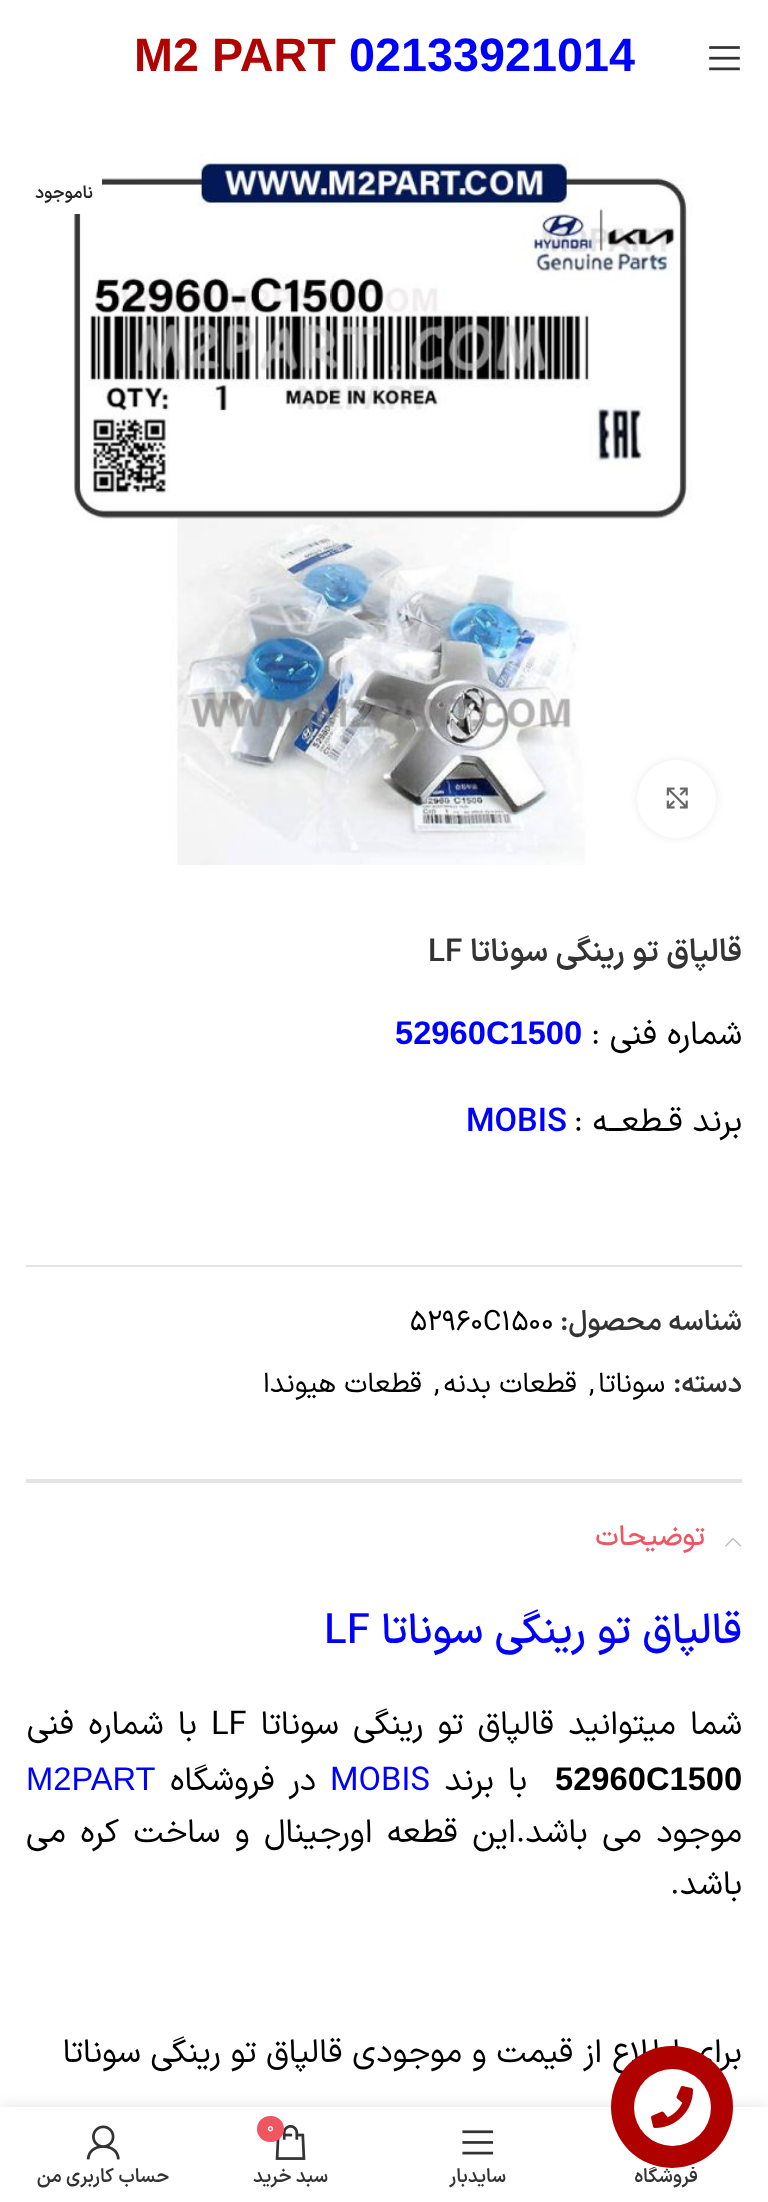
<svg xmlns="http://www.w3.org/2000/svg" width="768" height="2202">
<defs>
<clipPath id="clip1"><rect x="590" y="2167" width="152" height="22"/></clipPath>
</defs>
<rect width="100%" height="100%" fill="#fff"/>
<image x="709" y="46" width="31" height="25" href="media/1.png"/>
<text x="349" y="71" style="font-family:Liberation Sans;font-size:46.75px;font-weight:bold;fill:#00f">02133921014</text>
<text x="134" y="71" style="font-family:Liberation Sans;font-size:46.75px;font-weight:bold;fill:#b00404">M2 PART</text>
<image x="73" y="153" width="620" height="712" href="media/2.png"/>
<rect x="73" y="177" width="29" height="37" fill="#fff"/>
<text x="93" y="198" style="font-family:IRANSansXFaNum;font-size:17.5px;font-weight:600;direction:rtl;fill:#242424">ناموجود</text>
<rect x="637" y="760" width="79" height="78" rx="39" fill="#00000014" filter="blur(4.5px)"/>
<rect x="637" y="760" width="79" height="78" rx="39" fill="#fff"/>
<image x="666" y="787" width="22" height="22" href="media/3.png"/>
<text x="742" y="961" style="font-family:IRANSansXFaNum;font-size:31.5px;font-weight:600;direction:rtl;fill:#333">قالپاق تو رینگی سوناتا</text>
<text x="428" y="961" style="font-family:IRANSansXFaNum;font-size:31.5px;font-weight:600;fill:#333">LF</text>
<text x="742" y="1044" style="font-family:IRANSansXFaNum;font-size:32.7px;direction:rtl;fill:#000">شماره فنی :</text>
<text x="395" y="1044" style="font-family:Liberation Sans;font-size:32.7px;font-weight:bold;fill:#00f">52960C1500</text>
<text x="742" y="1131" style="font-family:IRANSansXFaNum;font-size:32.7px;direction:rtl;fill:#000">برند قـطعــه :</text>
<text x="466" y="1131" style="font-family:IRANSansXFaNum;font-size:32.7px;font-weight:600;fill:#00f">MOBIS</text>
<rect x="26" y="1265" width="716" height="2" fill="#e4e4e4"/>
<text x="742" y="1330" style="font-family:IRANSansXFaNum;font-size:28px;font-weight:600;direction:rtl;fill:#333">شناسه محصول:</text>
<text x="410" y="1330" style="font-family:IRANSansXFaNum;font-size:28px;fill:#000">52960C1500</text>
<text x="742" y="1392" style="font-family:IRANSansXFaNum;font-size:28px;font-weight:600;direction:rtl;fill:#333">دسته:</text>
<text x="665" y="1392" style="font-family:IRANSansXFaNum;font-size:28px;direction:rtl;fill:#000">سوناتا</text>
<text x="589" y="1392" style="font-family:IRANSansXFaNum;font-size:28px;fill:#000">,</text>
<text x="577" y="1392" style="font-family:IRANSansXFaNum;font-size:28px;direction:rtl;fill:#000">قطعات بدنه</text>
<text x="434" y="1392" style="font-family:IRANSansXFaNum;font-size:28px;fill:#000">,</text>
<text x="422" y="1392" style="font-family:IRANSansXFaNum;font-size:28px;direction:rtl;fill:#000">قطعات هیوندا</text>
<rect x="26" y="1479" width="716" height="4" fill="#e4e4e4"/>
<image x="725" y="1537" width="17" height="10" href="media/4.png"/>
<text x="705" y="1545" style="font-family:IRANSansXFaNum;font-size:28px;font-weight:500;direction:rtl;fill:#ef5661">توضیحات</text>
<text x="742" y="1643" style="font-family:IRANSansXFaNum;font-size:42px;font-weight:500;direction:rtl;fill:#00f">قالپاق تو رینگی سوناتا</text>
<text x="324" y="1643" style="font-family:IRANSansXFaNum;font-size:42px;font-weight:500;fill:#00f">LF</text>
<text x="742" y="1734" word-spacing="4.5" style="font-family:IRANSansXFaNum;font-size:32.7px;direction:rtl;fill:#000">شما میتوانید قالپاق تو رینگی سوناتا</text>
<text x="211" y="1734" style="font-family:IRANSansXFaNum;font-size:32.7px;fill:#000">LF</text>
<text x="197" y="1734" word-spacing="4.5" style="font-family:IRANSansXFaNum;font-size:32.7px;direction:rtl;fill:#000">با شماره فنی</text>
<text x="555" y="1790" style="font-family:Liberation Sans;font-size:32.7px;font-weight:bold;fill:#000">52960C1500</text>
<text x="527" y="1790" word-spacing="4" style="font-family:IRANSansXFaNum;font-size:32.7px;direction:rtl;fill:#000">با برند</text>
<text x="330" y="1790" style="font-family:IRANSansXFaNum;font-size:32.7px;fill:#00f">MOBIS</text>
<text x="316" y="1790" word-spacing="4" style="font-family:IRANSansXFaNum;font-size:32.7px;direction:rtl;fill:#000">در فروشگاه</text>
<text x="26" y="1790" style="font-family:Liberation Sans;font-size:32.7px;fill:#00f">M2PART</text>
<text x="742" y="1842" word-spacing="4.75" style="font-family:IRANSansXFaNum;font-size:32.7px;direction:rtl;fill:#000">موجود می باشد.این قطعه اورجینال و ساخت کره می</text>
<text x="742" y="1894" style="font-family:IRANSansXFaNum;font-size:32.7px;direction:rtl;fill:#000">باشد.</text>
<text x="742" y="2062" style="font-family:IRANSansXFaNum;font-size:32.7px;direction:rtl;fill:#000">برای اطلاع از قیمت و موجودی قالپاق تو رینگی سوناتا</text>
<rect y="2107" width="768" height="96" fill="#0000001f" filter="blur(8px)"/>
<rect y="2107" width="768" height="95" fill="#fff"/>
<g clip-path="url(#clip1)">
<text x="698" y="2182" style="font-family:IRANSansXFaNum;font-size:19.25px;font-weight:600;direction:rtl;fill:#333">فروشگاه</text>
</g>
<circle cx="672" cy="2107" r="61" fill="#b00101"/>
<circle cx="672.5" cy="2107.5" r="38.5" fill="#fff"/>
<image x="651" y="2086" width="42" height="42" href="media/5.png"/>
<image x="462" y="2130" width="32" height="25" href="media/6.png"/>
<text x="506" y="2182" style="font-family:IRANSansXFaNum;font-size:19.25px;font-weight:600;direction:rtl;fill:#333">سایدبار</text>
<image x="275" y="2124" width="31" height="36" href="media/7.png"/>
<rect x="257" y="2116" width="27" height="26" rx="13" fill="#ef5661"/>
<text x="267" y="2132" style="font-family:IRANSansXFaNum;font-size:16px;fill:#fff">0</text>
<text x="328" y="2182" style="font-family:IRANSansXFaNum;font-size:19.25px;font-weight:600;direction:rtl;fill:#333">سبد خرید</text>
<image x="86" y="2125" width="34" height="35" href="media/8.png"/>
<text x="169" y="2182" style="font-family:IRANSansXFaNum;font-size:19.25px;font-weight:600;direction:rtl;fill:#333">حساب کاربری من</text>
</svg>
